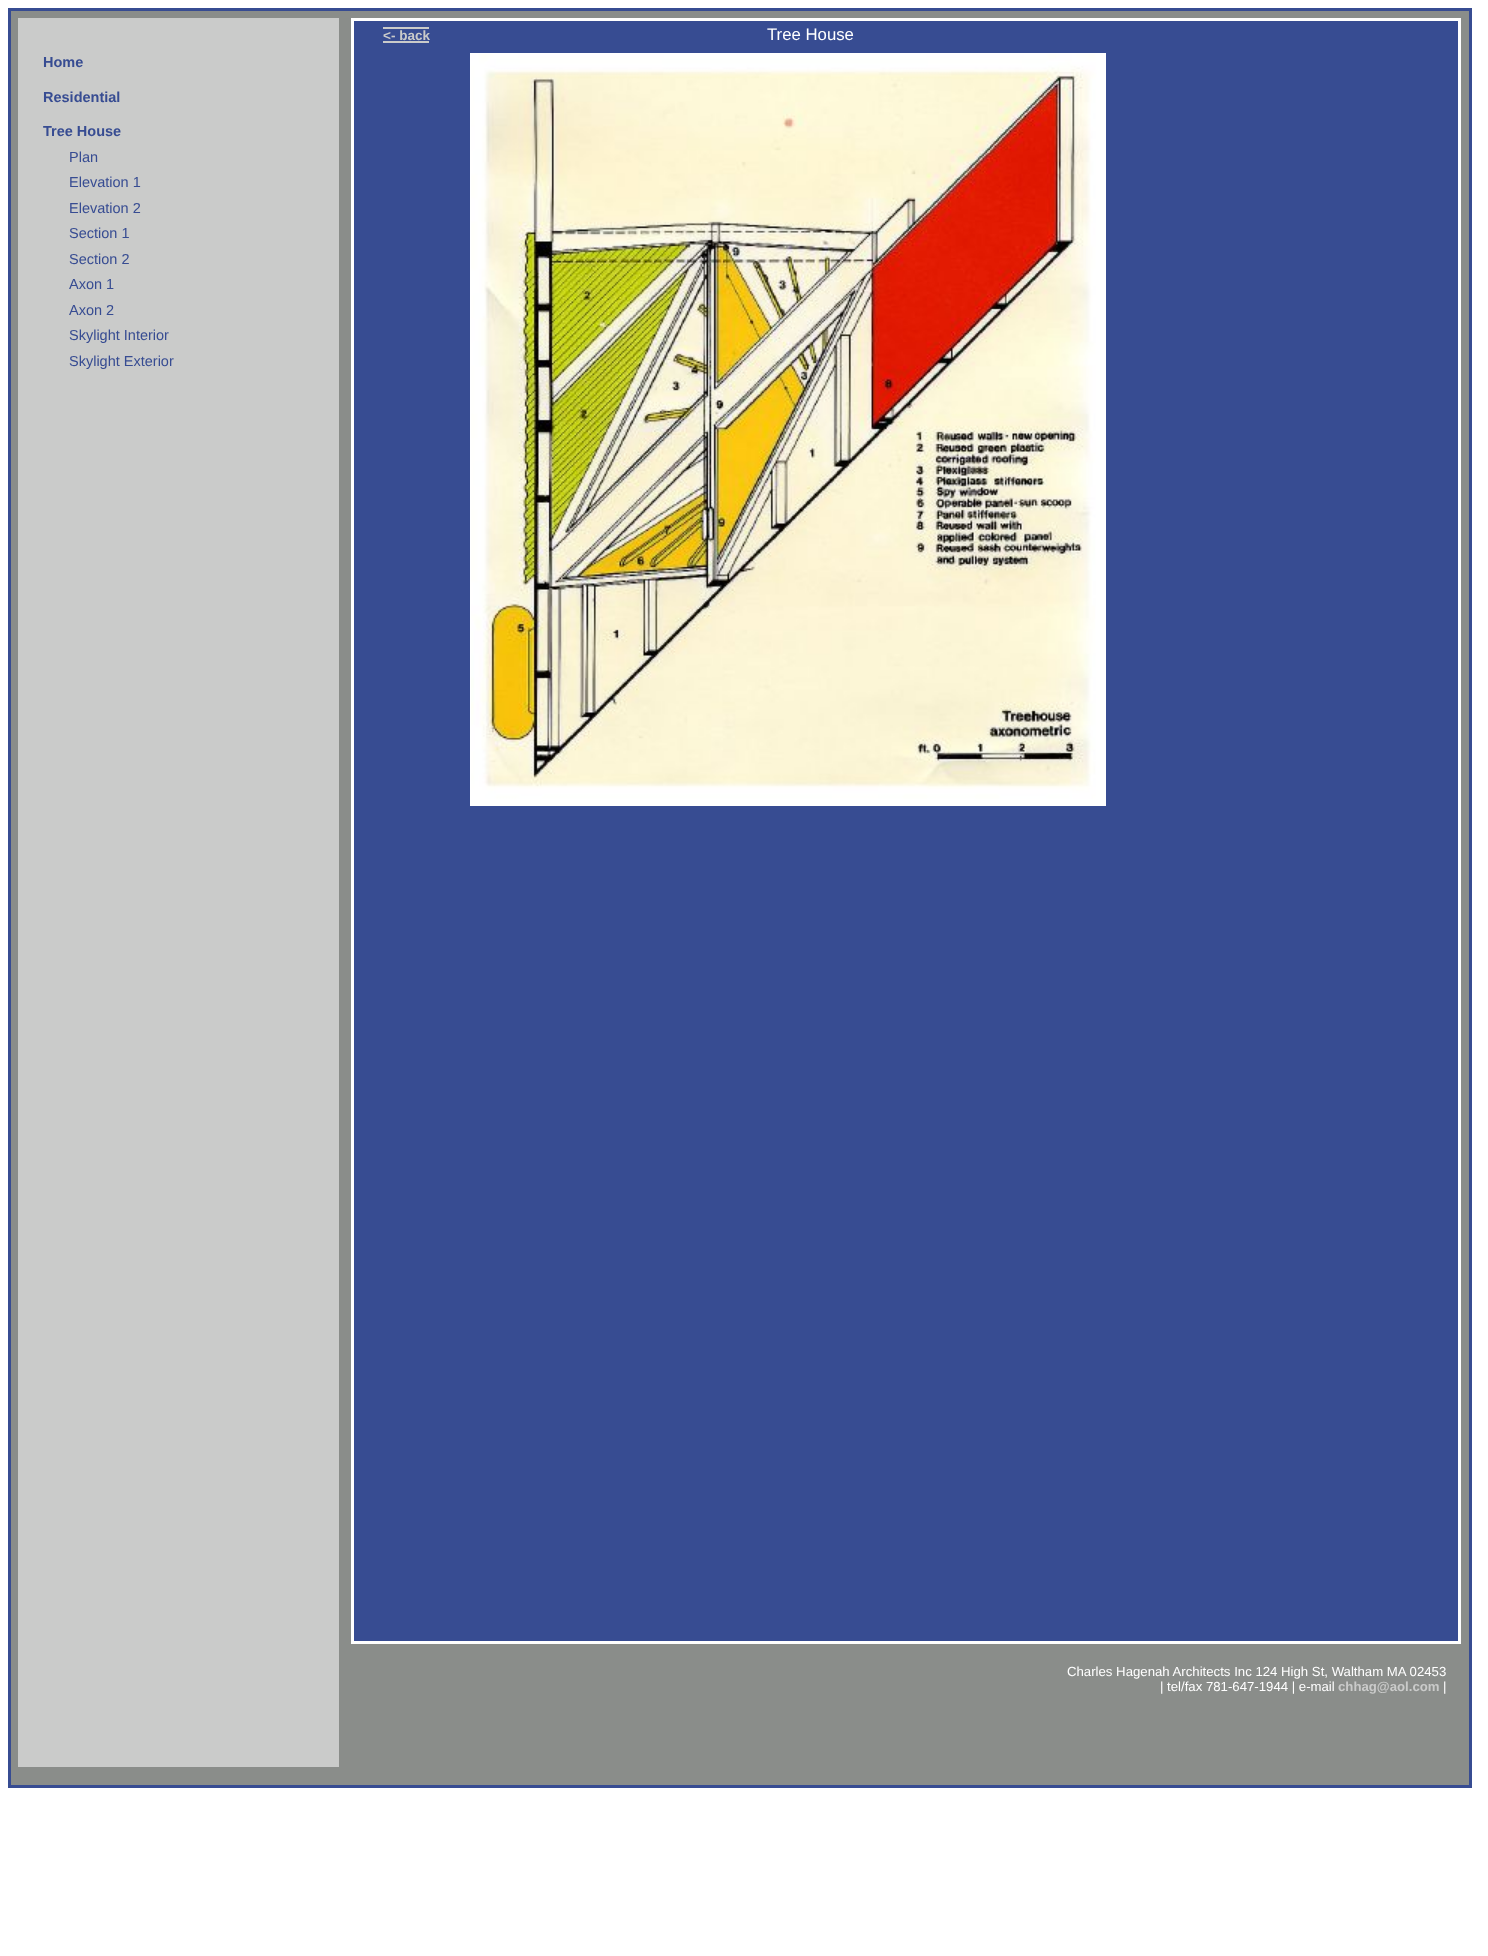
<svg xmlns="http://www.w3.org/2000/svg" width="1488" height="1956">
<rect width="100%" height="100%" fill="#fff"/>
<rect x="9.5" y="9.5" width="1461" height="1777" fill="#8a8d8a" stroke="#374c92" stroke-width="3"/>
<rect x="352.5" y="19.5" width="1107" height="1623" fill="#374c92" stroke="#fff" stroke-width="3"/>
<text x="383" y="40" style="font-family:Liberation Sans;font-size:13.5px;font-weight:bold;fill:#cacbca">&lt;- back</text>
<rect x="383" y="41" width="46" height="2" fill="#cacbca"/>
<rect x="383" y="27" width="46" height="2" fill="#cacbca"/>
<text x="767" y="40" style="font-family:Liberation Sans;font-size:16.75px;fill:#fff">Tree House</text>
<rect x="471" y="54" width="634" height="751" fill="none" stroke="#fff" stroke-width="2"/>
<image x="471" y="54" width="633" height="750" href="media/1.png"/>
<rect x="18" y="18" width="321" height="1749" fill="#cacbca"/>
<text x="43" y="67" style="font-family:Liberation Sans;font-size:14.5px;font-weight:bold;fill:#374c92">Home</text>
<text x="43" y="102" style="font-family:Liberation Sans;font-size:14.5px;font-weight:bold;fill:#374c92">Residential</text>
<text x="43" y="136" style="font-family:Liberation Sans;font-size:14.5px;font-weight:bold;fill:#374c92">Tree House</text>
<text x="69" y="162" style="font-family:Liberation Sans;font-size:14.5px;fill:#374c92">Plan</text>
<text x="69" y="187" style="font-family:Liberation Sans;font-size:14.5px;fill:#374c92">Elevation 1</text>
<text x="69" y="213" style="font-family:Liberation Sans;font-size:14.5px;fill:#374c92">Elevation 2</text>
<text x="69" y="238" style="font-family:Liberation Sans;font-size:14.5px;fill:#374c92">Section 1</text>
<text x="69" y="264" style="font-family:Liberation Sans;font-size:14.5px;fill:#374c92">Section 2</text>
<text x="69" y="289" style="font-family:Liberation Sans;font-size:14.5px;fill:#374c92">Axon 1</text>
<text x="69" y="315" style="font-family:Liberation Sans;font-size:14.5px;fill:#374c92">Axon 2</text>
<text x="69" y="340" style="font-family:Liberation Sans;font-size:14.5px;fill:#374c92">Skylight Interior</text>
<text x="69" y="366" style="font-family:Liberation Sans;font-size:14.5px;fill:#374c92">Skylight Exterior</text>
<text x="1067" y="1676" style="font-family:Liberation Sans;font-size:13.2px;fill:#fff">Charles Hagenah Architects Inc 124 High St, Waltham MA 02453</text>
<text x="1160" y="1691" style="font-family:Liberation Sans;font-size:13.2px;fill:#fff">| tel/fax 781-647-1944 | e-mail</text>
<text x="1338" y="1691" style="font-family:Liberation Sans;font-size:13.2px;font-weight:bold;fill:#cacbca">chhag@aol.com</text>
<text x="1443" y="1691" style="font-family:Liberation Sans;font-size:13.2px;fill:#fff">|</text>
</svg>
